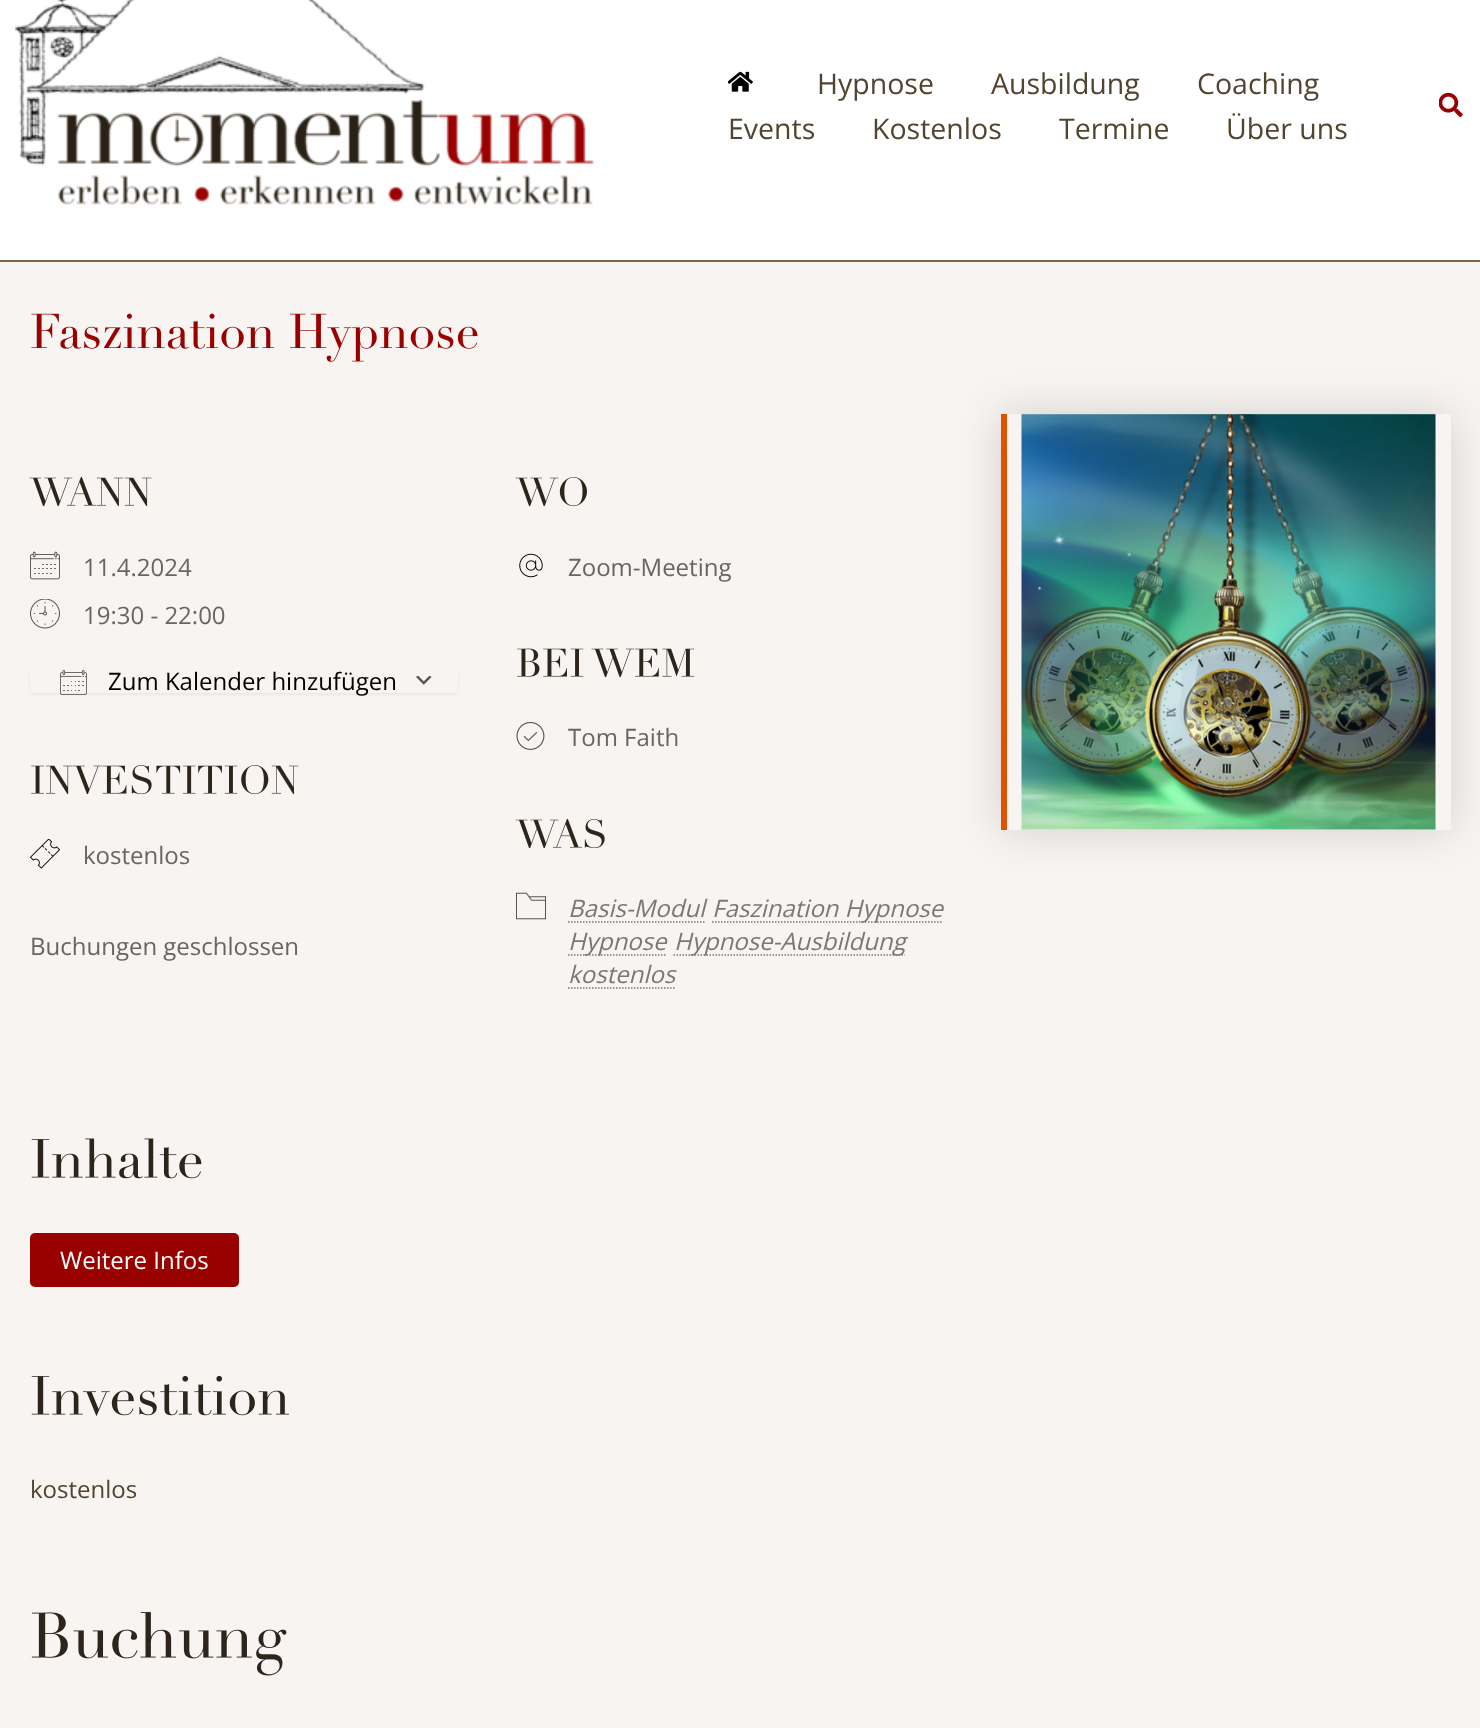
<svg xmlns="http://www.w3.org/2000/svg" width="1480" height="1728">
<defs>
<clipPath id="clip1"><path d="M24 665h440v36h-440zm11 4h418c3 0 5 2 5 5v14c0 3-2 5-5 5h-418c-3 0-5-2-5-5v-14c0-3 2-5 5-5z" clip-rule="evenodd"/></clipPath>
<clipPath id="clip2"><path d="M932 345h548v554h-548zm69 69h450v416h-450z" clip-rule="evenodd"/></clipPath>
</defs>
<rect width="100%" height="100%" fill="#f7f4f1"/>
<rect width="1480" height="260" fill="#fff"/>
<rect y="260" width="1480" height="2" fill="#7e664a"/>
<image x="15" y="0" width="580" height="205" href="media/1.png"/>
<image x="728" y="71" width="25" height="21" href="media/2.png"/>
<text x="817" y="94" style="font-family:Open Sans;font-size:28.5px;fill:#524430">Hypnose</text>
<text x="991" y="94" style="font-family:Open Sans;font-size:28.5px;fill:#524430">Ausbildung</text>
<text x="1197" y="94" style="font-family:Open Sans;font-size:28.5px;fill:#524430">Coaching</text>
<text x="728" y="139" style="font-family:Open Sans;font-size:28.5px;fill:#524430">Events</text>
<text x="872" y="139" style="font-family:Open Sans;font-size:28.5px;fill:#524430">Kostenlos</text>
<text x="1059" y="139" style="font-family:Open Sans;font-size:28.5px;fill:#524430">Termine</text>
<text x="1226" y="139" style="font-family:Open Sans;font-size:28.5px;fill:#524430">Über uns</text>
<image x="1439" y="92" width="24" height="26" href="media/3.png"/>
<image x="31" y="313" width="447" height="49" href="media/4.png"/>
<image x="29" y="477" width="123" height="30" href="media/5.png"/>
<image x="30" y="551" width="30" height="29" href="media/6.png"/>
<text x="83" y="576" style="font-family:Open Sans;font-size:24px;fill:#666">11.4.2024</text>
<image x="30" y="599" width="30" height="30" href="media/7.png"/>
<text x="83" y="624" style="font-family:Open Sans;font-size:24px;fill:#666">19:30 - 22:00</text>
<g clip-path="url(#clip1)">
<rect x="30" y="671" width="428" height="24" rx="5" fill="#0000000d" filter="blur(1.5px)"/>
</g>
<image x="416" y="675" width="16" height="10" href="media/8.png"/>
<image x="60" y="670" width="27" height="25" href="media/9.png"/>
<text x="108" y="690" style="font-family:Open Sans;font-size:24px;fill:#000">Zum Kalender hinzufügen</text>
<image x="31" y="765" width="268" height="30" href="media/10.png"/>
<image x="30" y="839" width="30" height="30" href="media/11.png"/>
<text x="83" y="864" style="font-family:Open Sans;font-size:24px;fill:#666">kostenlos</text>
<text x="30" y="955" style="font-family:Open Sans;font-size:24px;fill:#666">Buchungen geschlossen</text>
<image x="515" y="477" width="72" height="30" href="media/12.png"/>
<image x="519" y="553" width="24" height="25" href="media/13.png"/>
<text x="568" y="576" style="font-family:Open Sans;font-size:24px;fill:#666">Zoom-Meeting</text>
<image x="517" y="648" width="178" height="30" href="media/14.png"/>
<image x="516" y="722" width="29" height="28" href="media/15.png"/>
<text x="568" y="746" style="font-family:Open Sans;font-size:24px;fill:#666">Tom Faith</text>
<image x="515" y="819" width="90" height="30" href="media/16.png"/>
<image x="516" y="892" width="30" height="28" href="media/17.png"/>
<text x="568" y="917" style="font-family:Open Sans;font-size:24px;font-style:italic;fill:#787878">Basis-Modul</text>
<path d="M568 922h136.5" fill="none" stroke="#787878" stroke-width="1.5" stroke-dasharray="1.5 1.5"/>
<path d="M712 922h231" fill="none" stroke="#787878" stroke-width="1.5" stroke-dasharray="1.5 1.5"/>
<text x="712" y="917" style="font-family:Open Sans;font-size:24px;font-style:italic;fill:#787878">Faszination Hypnose</text>
<path d="M568 955h98" fill="none" stroke="#787878" stroke-width="1.5" stroke-dasharray="1.5 1.5"/>
<text x="568" y="950" style="font-family:Open Sans;font-size:24px;font-style:italic;fill:#787878">Hypnose</text>
<path d="M673.5 955h231.5" fill="none" stroke="#787878" stroke-width="1.5" stroke-dasharray="1.5 1.5"/>
<text x="674" y="950" style="font-family:Open Sans;font-size:24px;font-style:italic;fill:#787878">Hypnose-Ausbildung</text>
<text x="568" y="983" style="font-family:Open Sans;font-size:24px;font-style:italic;fill:#787878">kostenlos</text>
<path d="M568 988h107" fill="none" stroke="#787878" stroke-width="1.5" stroke-dasharray="1.5 1.5"/>
<g clip-path="url(#clip2)">
<rect x="1001" y="414" width="450" height="416" fill="#00000026" filter="blur(22.5px)"/>
</g>
<rect x="1001" y="414" width="6" height="416" fill="#df5300"/>
<image x="1021" y="414" width="415" height="416" href="media/18.png"/>
<image x="31" y="1138" width="171" height="41" href="media/19.png"/>
<rect x="30" y="1233" width="209" height="54" rx="5" fill="#900"/>
<text x="60" y="1269" style="font-family:Open Sans;font-size:24px;fill:#fff">Weitere Infos</text>
<image x="31" y="1375" width="258" height="42" href="media/20.png"/>
<text x="30" y="1498" style="font-family:Open Sans;font-size:24px;fill:#524430">kostenlos</text>
<image x="31" y="1612" width="256" height="64" href="media/21.png"/>
</svg>
